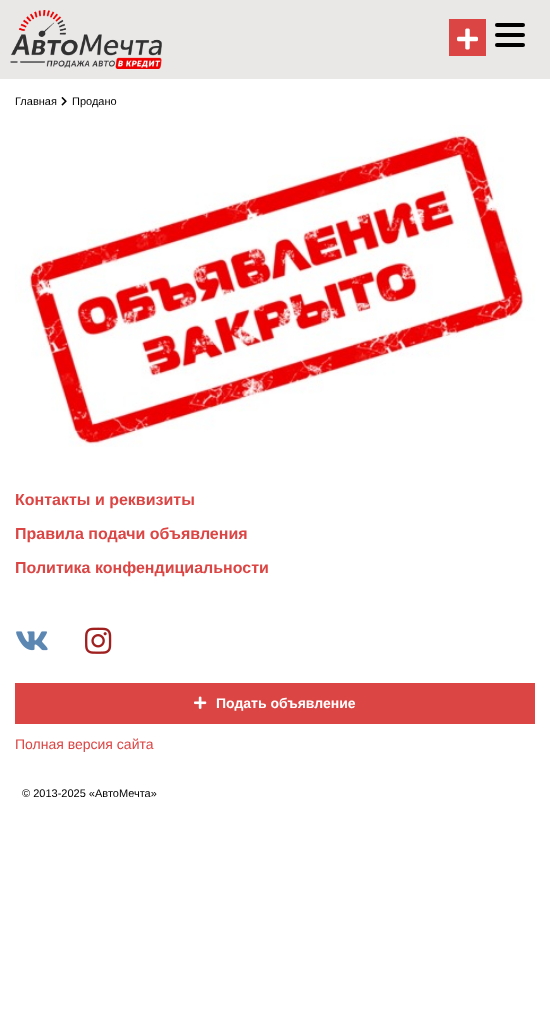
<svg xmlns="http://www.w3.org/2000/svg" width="550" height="1012">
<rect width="100%" height="100%" fill="#fff"/>
<rect width="550" height="79" fill="#eae7e7"/>
<image x="10" y="10" width="152" height="59" href="media/1.png"/>
<rect x="449" y="19" width="37" height="37" fill="#db4544"/>
<image x="457" y="28" width="21" height="22" href="media/2.png"/>
<rect x="495" y="23" width="30" height="4" rx="2" fill="#000"/>
<rect x="495" y="33" width="30" height="4" rx="2" fill="#000"/>
<rect x="495" y="43" width="30" height="4" rx="2" fill="#000"/>
<text x="15" y="105" style="font-family:Liberation Sans;font-size:11px;fill:#000">Главная</text>
<image x="61" y="97" width="6" height="9" href="media/3.png"/>
<text x="72" y="105" style="font-family:Liberation Sans;font-size:11px;fill:#000">Продано</text>
<image x="15" y="125" width="520" height="322" href="media/4.png"/>
<text x="15" y="505" style="font-family:Liberation Sans;font-size:16px;font-weight:bold;fill:#db4544">Контакты и реквизиты</text>
<text x="15" y="539" style="font-family:Liberation Sans;font-size:16px;font-weight:bold;fill:#db4544">Правила подачи объявления</text>
<text x="15" y="573" style="font-family:Liberation Sans;font-size:16px;font-weight:bold;fill:#db4544">Политика конфендициальности</text>
<image x="16" y="631" width="32" height="20" href="media/5.png"/>
<image x="85" y="627" width="27" height="27" href="media/6.png"/>
<rect x="15" y="683" width="520" height="41" fill="#db4544"/>
<image x="194" y="696" width="13" height="13" href="media/7.png"/>
<text x="216" y="708" style="font-family:Liberation Sans;font-size:14px;font-weight:bold;fill:#fff">Подать объявление</text>
<text x="15" y="749" style="font-family:Liberation Sans;font-size:14px;fill:#db4544">Полная версия сайта</text>
<text x="22" y="797" style="font-family:Liberation Sans;font-size:11px;fill:#000">© 2013-2025 «АвтоМечта»</text>
</svg>
